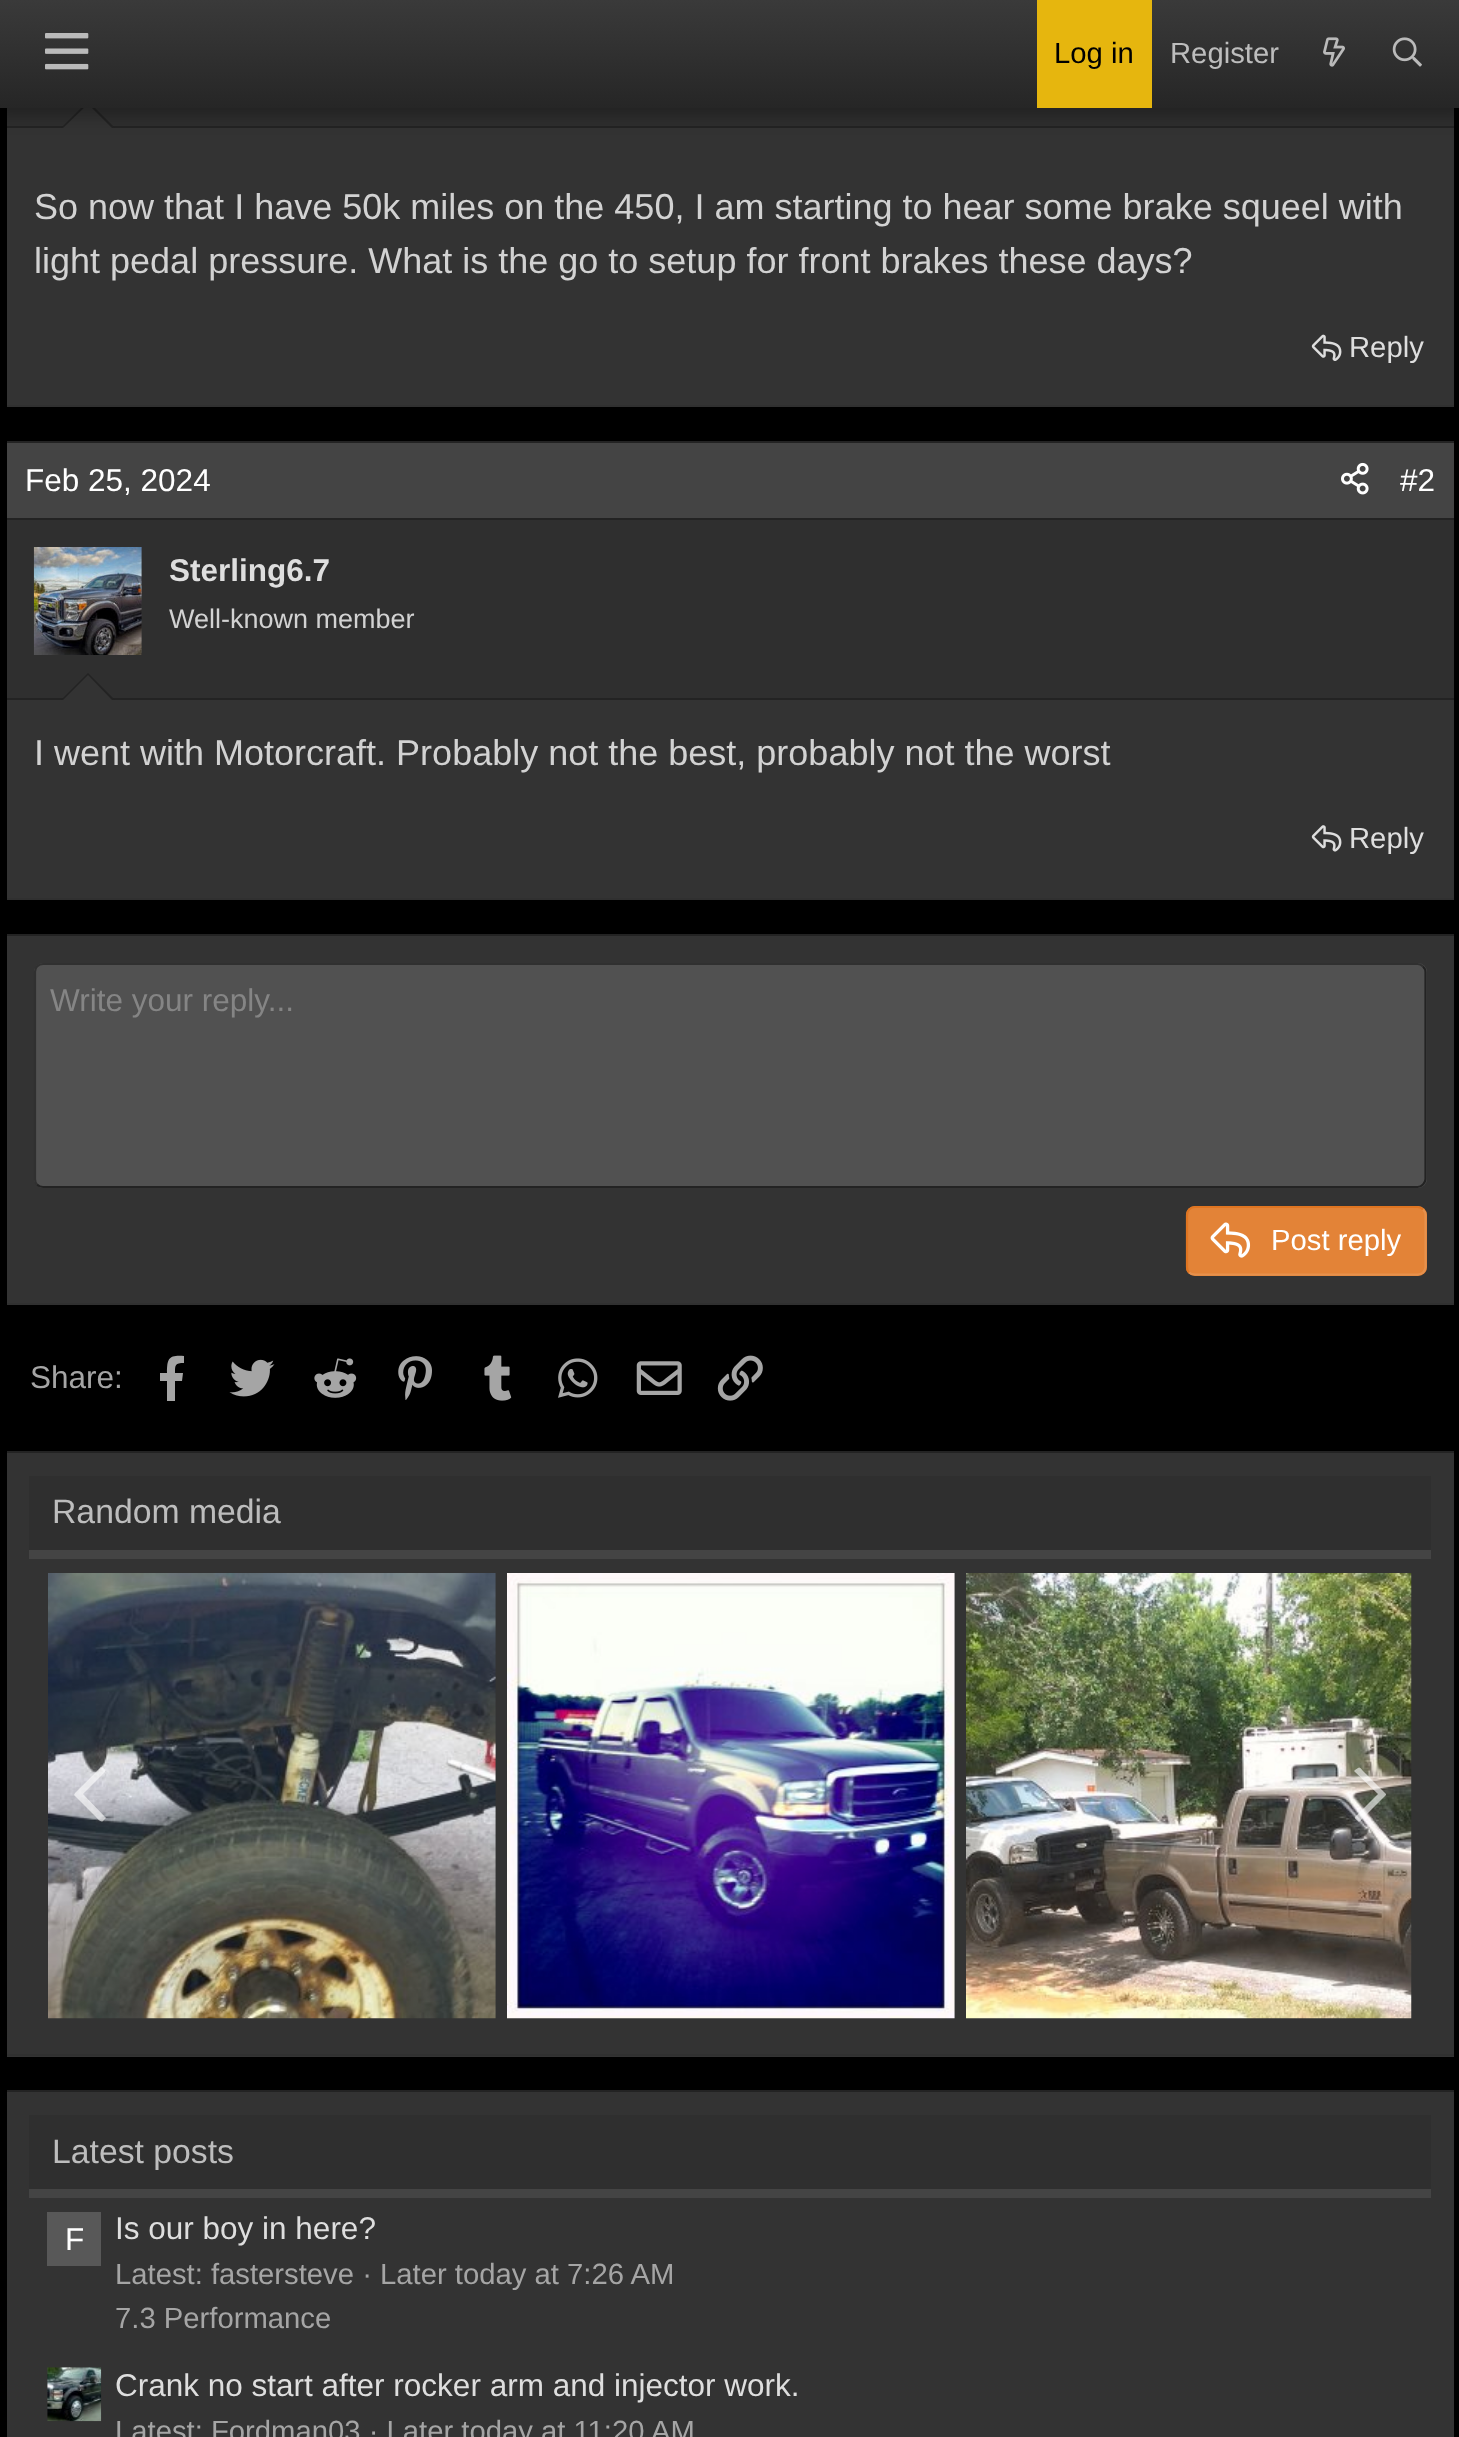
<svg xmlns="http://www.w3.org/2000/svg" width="1459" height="2437">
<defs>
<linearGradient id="g1" gradientUnits="userSpaceOnUse" x1="730" y1="0" x2="730" y2="108"><stop offset="0" stop-color="#3a3a3a"/><stop offset="1" stop-color="#262626"/></linearGradient>
</defs>
<rect width="100%" height="100%" fill="#000"/>
<rect x="7" y="128" width="1447" height="277" fill="#333"/>
<rect x="7" y="108" width="1447" height="18" fill="#2f2f2f"/>
<rect x="7" y="126" width="1447" height="2" fill="#232323"/>
<path d="M115 128h-54l27-27z" fill="#232323"/>
<path d="M112 128h-49l25-24z" fill="#333"/>
<rect x="-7" y="-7" width="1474" height="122" fill="#0000004d" filter="blur(9px)"/>
<rect width="1459" height="108" fill="url(#g1)"/>
<image x="45" y="33" width="44" height="37" href="media/1.png"/>
<rect x="1037" width="115" height="108" fill="#e6b60e"/>
<text x="1054" y="63" style="font-family:Liberation Sans;font-size:29.25px;fill:#000">Log in</text>
<text x="1170" y="63" style="font-family:Liberation Sans;font-size:29.25px;fill:#bdbdbd">Register</text>
<image x="1323" y="37" width="22" height="30" href="media/2.png"/>
<image x="1392" y="37" width="30" height="30" href="media/3.png"/>
<rect x="7" y="405" width="1447" height="2" fill="#303030"/>
<text x="34" y="219" style="font-family:Liberation Sans;font-size:36px;fill:#d2d2d2">So now that I have 50k miles on the 450, I am starting to hear some brake squeel with</text>
<text x="34" y="273" style="font-family:Liberation Sans;font-size:36px;fill:#d2d2d2">light pedal pressure. What is the go to setup for front brakes these days?</text>
<image x="1311" y="334" width="31" height="27" href="media/4.png"/>
<text x="1349" y="357" style="font-family:Liberation Sans;font-size:29.25px;fill:#dedede">Reply</text>
<rect x="7" y="700" width="1447" height="198" fill="#333"/>
<rect x="7" y="441" width="1447" height="2" fill="#232323"/>
<rect x="7" y="898" width="1447" height="2" fill="#303030"/>
<rect x="7" y="443" width="1447" height="75" fill="#444"/>
<rect x="7" y="518" width="1447" height="2" fill="#232323"/>
<text x="25" y="491" style="font-family:Liberation Sans;font-size:31.5px;fill:#fff">Feb 25, 2024</text>
<image x="1341" y="462" width="28" height="33" href="media/5.png"/>
<text x="1400" y="491" style="font-family:Liberation Sans;font-size:31.5px;fill:#fff">#2</text>
<rect x="7" y="520" width="1447" height="178" fill="#2f2f2f"/>
<rect x="7" y="698" width="1447" height="2" fill="#232323"/>
<rect x="141" y="547" width="1" height="108" fill="#333"/>
<image x="33" y="547" width="109" height="108" href="media/6.png"/>
<text x="169" y="581" style="font-family:Liberation Sans;font-size:31.5px;font-weight:bold;fill:#dedede">Sterling6.7</text>
<text x="169" y="628" style="font-family:Liberation Sans;font-size:27px;fill:#d2d2d2">Well-known member</text>
<path d="M115 700h-54l27-27z" fill="#232323"/>
<path d="M112 700h-49l25-25z" fill="#333"/>
<text x="34" y="765" style="font-family:Liberation Sans;font-size:36px;fill:#d2d2d2">I went with Motorcraft. Probably not the best, probably not the worst</text>
<image x="1311" y="825" width="31" height="27" href="media/7.png"/>
<text x="1349" y="848" style="font-family:Liberation Sans;font-size:29.25px;fill:#dedede">Reply</text>
<rect x="7" y="936" width="1447" height="367" fill="#333"/>
<rect x="7" y="934" width="1447" height="2" fill="#232323"/>
<rect x="7" y="1303" width="1447" height="2" fill="#303030"/>
<rect x="34" y="963" width="1393" height="225" rx="9" fill="#515151"/>
<path d="M1423 966.5c1.5 1.5 2.5 3.5 2.5 5.5v207c0 2-1 4-2.5 5.5c-1.5 1.5-3.5 2.5-5.5 2.5h-1374.5c-2.5 0-4.5-1-6-2.5" fill="none" stroke="#232323" stroke-width="2.2"/>
<path d="M37 1184.5c-1.5-1.5-2-3.5-2-5.5v-207c0-2 .5-4 2-5.5c1.5-1.5 3.5-2.5 6-2.5h1374.5c2 0 4 1 5.5 2.5" fill="none" stroke="#303030" stroke-width="2.2"/>
<text x="50" y="1011" style="font-family:Liberation Sans;font-size:31.5px;fill:#858585">Write your reply...</text>
<rect x="1186" y="1206" width="241" height="70" rx="9" fill="#e38337"/>
<path d="M1423 1209.5c1.5 1.5 2.5 3.5 2.5 5.5v52c0 2-1 4-2.5 5.5c-1.5 1.5-3.5 2-5.5 2h-222.5c-2.5 0-4.5-.5-6-2" fill="none" stroke="#e6914d" stroke-width="2.2"/>
<path d="M1189 1272.5c-1.5-1.5-2-3.5-2-5.5v-52c0-2 .5-4 2-5.5c1.5-1.5 3.5-2.5 6-2.5h222.5c2 0 4 1 5.5 2.5" fill="none" stroke="#e07521" stroke-width="2.2"/>
<image x="1210" y="1222" width="41" height="36" href="media/8.png"/>
<text x="1271" y="1250" style="font-family:Liberation Sans;font-size:29.25px;fill:#fff">Post reply</text>
<text x="30" y="1388" style="font-family:Liberation Sans;font-size:31.5px;fill:#a5a5a5">Share:</text>
<path d="M182 1381h-7v20h-8v-20h-7v-8h7c0-15 2-18 17-17v7c-9 0-9 2-9 10h8z" fill="#a5a5a5"/>
<image x="229" y="1359" width="46" height="38" href="media/9.png"/>
<image x="314" y="1358" width="43" height="40" href="media/10.png"/>
<image x="398" y="1356" width="34" height="44" href="media/11.png"/>
<image x="484" y="1355" width="28" height="46" href="media/12.png"/>
<image x="558" y="1358" width="40" height="40" href="media/13.png"/>
<image x="636" y="1361" width="46" height="34" href="media/14.png"/>
<image x="717" y="1355" width="46" height="46" href="media/15.png"/>
<rect x="7" y="1453" width="1447" height="604" fill="#333"/>
<rect x="7" y="1451" width="1447" height="2" fill="#232323"/>
<rect x="7" y="2054" width="1447" height="2" fill="#303030"/>
<rect x="29" y="1476" width="1402" height="74" fill="#2f2f2f"/>
<rect x="29" y="1550" width="1402" height="9" fill="#444"/>
<text x="52" y="1523" style="font-family:Liberation Sans;font-size:33.75px;fill:#bdbdbd">Random media</text>
<image x="48" y="1573" width="448" height="446" href="media/16.png"/>
<image x="507" y="1573" width="448" height="446" href="media/17.png"/>
<image x="966" y="1573" width="446" height="446" href="media/18.png"/>
<path d="M103 1821c-2 2-5-2-7-4l-22-22l1-2l26-26l2 1c1 1 4 2 2 4l-22 22l22 23c1 0 1 1 0 2z" fill="#ffffff99"/>
<path d="M1358 1768c2-2 4 2 6 4l22 22v1l-27 27l-1-1c-1-1-4-3-3-4l23-23l-23-22c-1-1-1-1 0-2z" fill="#ffffff99"/>
<rect x="7" y="2092" width="1447" height="345" fill="#333"/>
<rect x="7" y="2090" width="1447" height="2" fill="#232323"/>
<rect x="29" y="2115" width="1402" height="74" fill="#2f2f2f"/>
<rect x="29" y="2189" width="1402" height="9" fill="#444"/>
<text x="52" y="2163" style="font-family:Liberation Sans;font-size:33.75px;fill:#bdbdbd">Latest posts</text>
<rect x="47" y="2212" width="54" height="54" fill="#585858"/>
<text x="65" y="2250" style="font-family:Liberation Sans;font-size:31.5px;fill:#fff">F</text>
<text x="115" y="2239" style="font-family:Liberation Sans;font-size:31.5px;fill:#dedede">Is our boy in here?</text>
<text x="115" y="2284" style="font-family:Liberation Sans;font-size:29.25px;fill:#a5a5a5">Latest: fastersteve · Later today at 7:26 AM</text>
<text x="115" y="2328" style="font-family:Liberation Sans;font-size:29.25px;fill:#a5a5a5">7.3 Performance</text>
<image x="47" y="2367" width="55" height="55" href="media/19.png"/>
<text x="115" y="2396" style="font-family:Liberation Sans;font-size:31.5px;fill:#dedede">Crank no start after rocker arm and injector work.</text>
<text x="115" y="2441" style="font-family:Liberation Sans;font-size:29.25px;fill:#a5a5a5">Latest: Fordman03 · Later today at 11:20 AM</text>
</svg>
